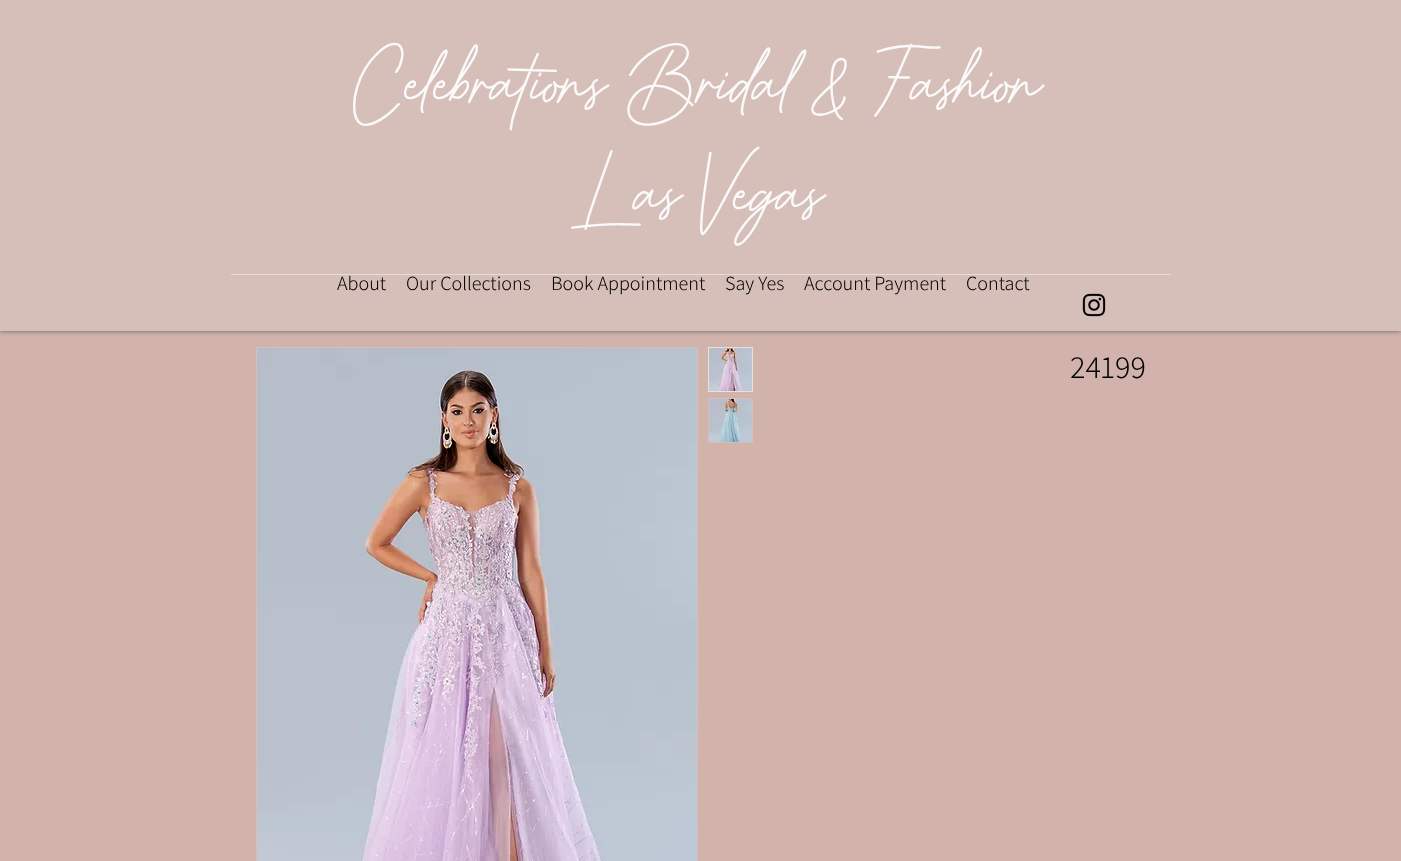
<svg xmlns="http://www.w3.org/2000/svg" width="1401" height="861">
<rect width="100%" height="100%" fill="#d1b3ac"/>
<rect width="1401" height="331" fill="#00000080" filter="blur(2.5px)"/>
<rect width="1401" height="331" fill="#d6bfb9"/>
<text x="353" y="124" style="font-family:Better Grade;font-size:120px;fill:#fafafa">Celebrations Bridal &amp; Fashion</text>
<text x="571" y="234" style="font-family:Better Grade;font-size:120px;fill:#fafafa">Las Vegas</text>
<rect x="231" y="274" width="940" height="1" fill="#e4ded9"/>
<text x="337" y="290" style="font-family:Assistant;font-size:20px;font-weight:300;fill:#000">About</text>
<text x="406" y="290" style="font-family:Assistant;font-size:20px;font-weight:300;fill:#000">Our Collections</text>
<text x="551" y="290" style="font-family:Assistant;font-size:20px;font-weight:300;fill:#000">Book Appointment</text>
<text x="725" y="290" style="font-family:Assistant;font-size:20px;font-weight:300;fill:#000">Say Yes</text>
<text x="804" y="290" style="font-family:Assistant;font-size:20px;font-weight:300;fill:#000">Account Payment</text>
<text x="966" y="290" style="font-family:Assistant;font-size:20px;font-weight:300;fill:#000">Contact</text>
<image x="1082" y="293" width="24" height="24" href="media/1.png"/>
<rect x="256.5" y="347.5" width="441" height="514" fill="none" stroke="#d6bfb9"/>
<image x="257" y="348" width="440" height="513" href="media/2.png"/>
<rect x="708.5" y="347.5" width="44" height="44" fill="none" stroke="#e6e3df"/>
<image x="709" y="348" width="43" height="43" href="media/3.png"/>
<rect x="708" y="398" width="45" height="45" fill="#d6bfb9"/>
<image x="709" y="399" width="43" height="43" href="media/4.png"/>
<text x="1070" y="378" style="font-family:Assistant;font-size:32px;font-weight:300;fill:#000">24199</text>
</svg>
